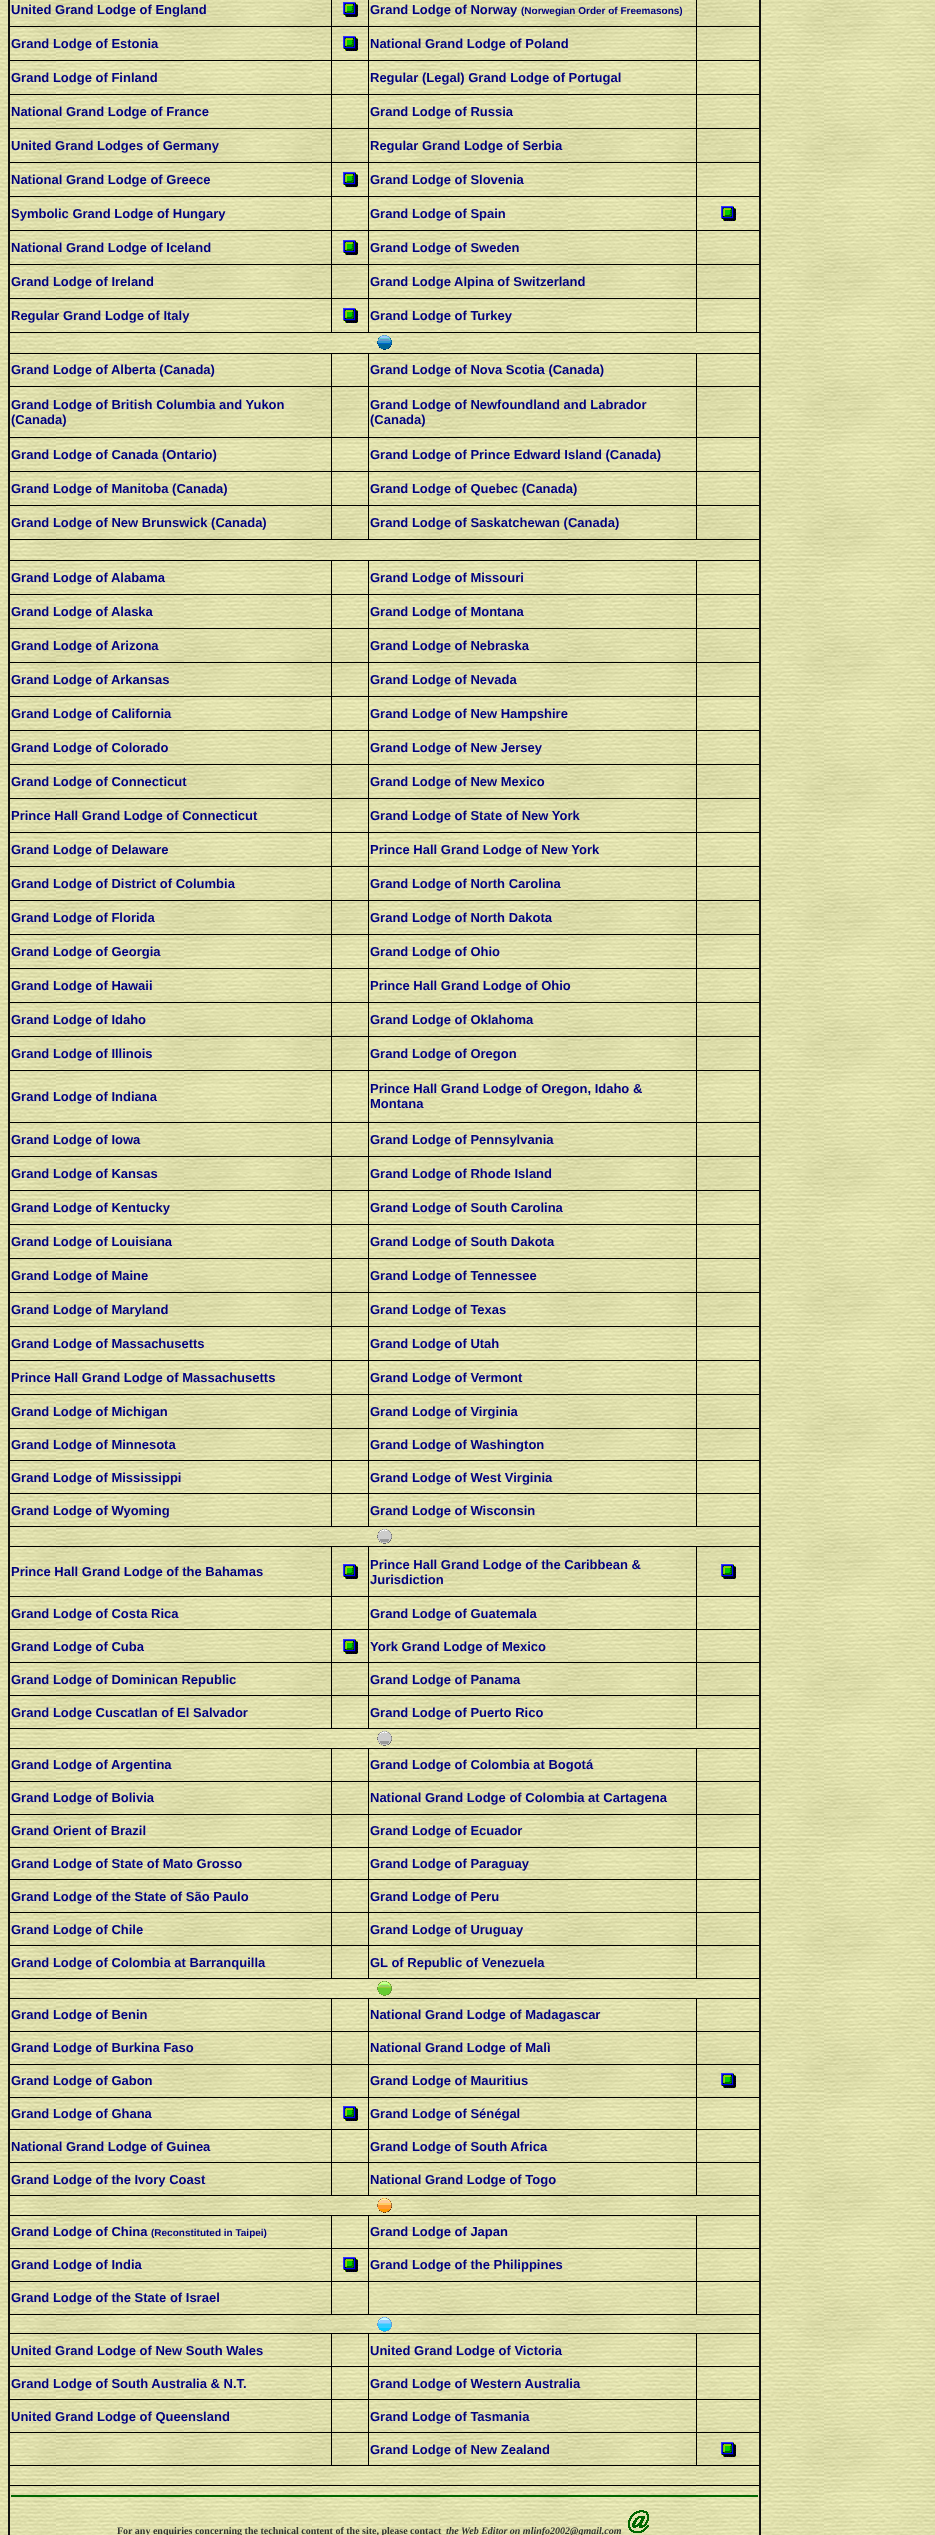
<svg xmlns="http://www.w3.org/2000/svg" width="935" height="2535">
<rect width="100%" height="100%" fill="#fff"/>
<image x="0" y="0" width="935" height="2535" href="media/1.png"/>
<rect x="696" y="26" width="65" height="1" fill="#000"/>
<rect x="696" y="60" width="65" height="1" fill="#000"/>
<rect x="696" y="94" width="65" height="1" fill="#000"/>
<rect x="696" y="128" width="65" height="1" fill="#000"/>
<rect x="696" y="162" width="65" height="1" fill="#000"/>
<rect x="696" y="196" width="65" height="1" fill="#000"/>
<rect x="696" y="230" width="65" height="1" fill="#000"/>
<rect x="696" y="264" width="65" height="1" fill="#000"/>
<rect x="696" y="298" width="65" height="1" fill="#000"/>
<rect x="9" y="332" width="752" height="1" fill="#000"/>
<rect x="696" y="353" width="65" height="1" fill="#000"/>
<rect x="696" y="386" width="65" height="1" fill="#000"/>
<rect x="696" y="437" width="65" height="1" fill="#000"/>
<rect x="696" y="471" width="65" height="1" fill="#000"/>
<rect x="696" y="505" width="65" height="1" fill="#000"/>
<rect x="9" y="539" width="752" height="1" fill="#000"/>
<rect x="696" y="560" width="65" height="1" fill="#000"/>
<rect x="696" y="594" width="65" height="1" fill="#000"/>
<rect x="696" y="628" width="65" height="1" fill="#000"/>
<rect x="696" y="662" width="65" height="1" fill="#000"/>
<rect x="696" y="696" width="65" height="1" fill="#000"/>
<rect x="696" y="730" width="65" height="1" fill="#000"/>
<rect x="696" y="764" width="65" height="1" fill="#000"/>
<rect x="696" y="798" width="65" height="1" fill="#000"/>
<rect x="696" y="832" width="65" height="1" fill="#000"/>
<rect x="696" y="866" width="65" height="1" fill="#000"/>
<rect x="696" y="900" width="65" height="1" fill="#000"/>
<rect x="696" y="934" width="65" height="1" fill="#000"/>
<rect x="696" y="968" width="65" height="1" fill="#000"/>
<rect x="696" y="1002" width="65" height="1" fill="#000"/>
<rect x="696" y="1036" width="65" height="1" fill="#000"/>
<rect x="696" y="1070" width="65" height="1" fill="#000"/>
<rect x="696" y="1122" width="65" height="1" fill="#000"/>
<rect x="696" y="1156" width="65" height="1" fill="#000"/>
<rect x="696" y="1190" width="65" height="1" fill="#000"/>
<rect x="696" y="1224" width="65" height="1" fill="#000"/>
<rect x="696" y="1258" width="65" height="1" fill="#000"/>
<rect x="696" y="1292" width="65" height="1" fill="#000"/>
<rect x="696" y="1326" width="65" height="1" fill="#000"/>
<rect x="696" y="1360" width="65" height="1" fill="#000"/>
<rect x="696" y="1394" width="65" height="1" fill="#000"/>
<rect x="696" y="1428" width="65" height="1" fill="#000"/>
<rect x="696" y="1460" width="65" height="1" fill="#000"/>
<rect x="696" y="1493" width="65" height="1" fill="#000"/>
<rect x="9" y="1526" width="752" height="1" fill="#000"/>
<rect x="696" y="1546" width="65" height="1" fill="#000"/>
<rect x="696" y="1596" width="65" height="1" fill="#000"/>
<rect x="696" y="1629" width="65" height="1" fill="#000"/>
<rect x="696" y="1662" width="65" height="1" fill="#000"/>
<rect x="696" y="1695" width="65" height="1" fill="#000"/>
<rect x="9" y="1728" width="752" height="1" fill="#000"/>
<rect x="696" y="1748" width="65" height="1" fill="#000"/>
<rect x="696" y="1781" width="65" height="1" fill="#000"/>
<rect x="696" y="1814" width="65" height="1" fill="#000"/>
<rect x="696" y="1847" width="65" height="1" fill="#000"/>
<rect x="696" y="1879" width="65" height="1" fill="#000"/>
<rect x="696" y="1912" width="65" height="1" fill="#000"/>
<rect x="696" y="1945" width="65" height="1" fill="#000"/>
<rect x="9" y="1978" width="752" height="1" fill="#000"/>
<rect x="696" y="1998" width="65" height="1" fill="#000"/>
<rect x="696" y="2031" width="65" height="1" fill="#000"/>
<rect x="696" y="2064" width="65" height="1" fill="#000"/>
<rect x="696" y="2097" width="65" height="1" fill="#000"/>
<rect x="696" y="2129" width="65" height="1" fill="#000"/>
<rect x="696" y="2162" width="65" height="1" fill="#000"/>
<rect x="9" y="2195" width="752" height="1" fill="#000"/>
<rect x="696" y="2215" width="65" height="1" fill="#000"/>
<rect x="696" y="2248" width="65" height="1" fill="#000"/>
<rect x="696" y="2281" width="65" height="1" fill="#000"/>
<rect x="9" y="2314" width="752" height="1" fill="#000"/>
<rect x="696" y="2333" width="65" height="1" fill="#000"/>
<rect x="696" y="2366" width="65" height="1" fill="#000"/>
<rect x="696" y="2399" width="65" height="1" fill="#000"/>
<rect x="696" y="2432" width="65" height="1" fill="#000"/>
<rect x="9" y="2465" width="752" height="1" fill="#000"/>
<rect x="9" y="2485" width="752" height="1" fill="#000"/>
<rect x="759" width="2" height="2535" fill="#111"/>
<rect x="696" y="298" width="1" height="35" fill="#000"/>
<rect x="368" y="298" width="329" height="1" fill="#000"/>
<rect x="696" y="264" width="1" height="35" fill="#000"/>
<rect x="368" y="264" width="329" height="1" fill="#000"/>
<rect x="696" y="230" width="1" height="35" fill="#000"/>
<rect x="368" y="230" width="329" height="1" fill="#000"/>
<rect x="696" y="196" width="1" height="35" fill="#000"/>
<rect x="368" y="196" width="329" height="1" fill="#000"/>
<rect x="696" y="162" width="1" height="35" fill="#000"/>
<rect x="368" y="162" width="329" height="1" fill="#000"/>
<rect x="696" y="128" width="1" height="35" fill="#000"/>
<rect x="368" y="128" width="329" height="1" fill="#000"/>
<rect x="696" y="94" width="1" height="35" fill="#000"/>
<rect x="368" y="94" width="329" height="1" fill="#000"/>
<rect x="696" y="60" width="1" height="35" fill="#000"/>
<rect x="368" y="60" width="329" height="1" fill="#000"/>
<rect x="696" y="26" width="1" height="35" fill="#000"/>
<rect x="368" y="26" width="329" height="1" fill="#000"/>
<rect x="368" y="298" width="1" height="35" fill="#000"/>
<rect x="331" y="298" width="38" height="1" fill="#000"/>
<rect x="368" y="264" width="1" height="35" fill="#000"/>
<rect x="331" y="264" width="38" height="1" fill="#000"/>
<rect x="368" y="230" width="1" height="35" fill="#000"/>
<rect x="331" y="230" width="38" height="1" fill="#000"/>
<rect x="368" y="196" width="1" height="35" fill="#000"/>
<rect x="331" y="196" width="38" height="1" fill="#000"/>
<rect x="368" y="162" width="1" height="35" fill="#000"/>
<rect x="331" y="162" width="38" height="1" fill="#000"/>
<rect x="368" y="128" width="1" height="35" fill="#000"/>
<rect x="331" y="128" width="38" height="1" fill="#000"/>
<rect x="368" y="94" width="1" height="35" fill="#000"/>
<rect x="331" y="94" width="38" height="1" fill="#000"/>
<rect x="368" y="60" width="1" height="35" fill="#000"/>
<rect x="331" y="60" width="38" height="1" fill="#000"/>
<rect x="368" y="26" width="1" height="35" fill="#000"/>
<rect x="331" y="26" width="38" height="1" fill="#000"/>
<rect x="331" y="298" width="1" height="35" fill="#000"/>
<rect x="9" y="298" width="323" height="1" fill="#000"/>
<rect x="331" y="264" width="1" height="35" fill="#000"/>
<rect x="9" y="264" width="323" height="1" fill="#000"/>
<rect x="331" y="230" width="1" height="35" fill="#000"/>
<rect x="9" y="230" width="323" height="1" fill="#000"/>
<rect x="331" y="196" width="1" height="35" fill="#000"/>
<rect x="9" y="196" width="323" height="1" fill="#000"/>
<rect x="331" y="162" width="1" height="35" fill="#000"/>
<rect x="9" y="162" width="323" height="1" fill="#000"/>
<rect x="331" y="128" width="1" height="35" fill="#000"/>
<rect x="9" y="128" width="323" height="1" fill="#000"/>
<rect x="331" y="94" width="1" height="35" fill="#000"/>
<rect x="9" y="94" width="323" height="1" fill="#000"/>
<rect x="331" y="60" width="1" height="35" fill="#000"/>
<rect x="9" y="60" width="323" height="1" fill="#000"/>
<rect x="331" y="26" width="1" height="35" fill="#000"/>
<rect x="9" y="26" width="323" height="1" fill="#000"/>
<rect x="696" y="505" width="1" height="35" fill="#000"/>
<rect x="368" y="505" width="329" height="1" fill="#000"/>
<rect x="696" y="471" width="1" height="35" fill="#000"/>
<rect x="368" y="471" width="329" height="1" fill="#000"/>
<rect x="696" y="437" width="1" height="35" fill="#000"/>
<rect x="368" y="437" width="329" height="1" fill="#000"/>
<rect x="696" y="386" width="1" height="52" fill="#000"/>
<rect x="368" y="386" width="329" height="1" fill="#000"/>
<rect x="696" y="353" width="1" height="34" fill="#000"/>
<rect x="368" y="353" width="329" height="1" fill="#000"/>
<rect x="368" y="505" width="1" height="35" fill="#000"/>
<rect x="331" y="505" width="38" height="1" fill="#000"/>
<rect x="368" y="471" width="1" height="35" fill="#000"/>
<rect x="331" y="471" width="38" height="1" fill="#000"/>
<rect x="368" y="437" width="1" height="35" fill="#000"/>
<rect x="331" y="437" width="38" height="1" fill="#000"/>
<rect x="368" y="386" width="1" height="52" fill="#000"/>
<rect x="331" y="386" width="38" height="1" fill="#000"/>
<rect x="368" y="353" width="1" height="34" fill="#000"/>
<rect x="331" y="353" width="38" height="1" fill="#000"/>
<rect x="331" y="505" width="1" height="35" fill="#000"/>
<rect x="9" y="505" width="323" height="1" fill="#000"/>
<rect x="331" y="471" width="1" height="35" fill="#000"/>
<rect x="9" y="471" width="323" height="1" fill="#000"/>
<rect x="331" y="437" width="1" height="35" fill="#000"/>
<rect x="9" y="437" width="323" height="1" fill="#000"/>
<rect x="331" y="386" width="1" height="52" fill="#000"/>
<rect x="9" y="386" width="323" height="1" fill="#000"/>
<rect x="331" y="353" width="1" height="34" fill="#000"/>
<rect x="9" y="353" width="323" height="1" fill="#000"/>
<rect x="696" y="1493" width="1" height="34" fill="#000"/>
<rect x="368" y="1493" width="329" height="1" fill="#000"/>
<rect x="696" y="1460" width="1" height="34" fill="#000"/>
<rect x="368" y="1460" width="329" height="1" fill="#000"/>
<rect x="696" y="1428" width="1" height="33" fill="#000"/>
<rect x="368" y="1428" width="329" height="1" fill="#000"/>
<rect x="696" y="1394" width="1" height="35" fill="#000"/>
<rect x="368" y="1394" width="329" height="1" fill="#000"/>
<rect x="696" y="1360" width="1" height="35" fill="#000"/>
<rect x="368" y="1360" width="329" height="1" fill="#000"/>
<rect x="696" y="1326" width="1" height="35" fill="#000"/>
<rect x="368" y="1326" width="329" height="1" fill="#000"/>
<rect x="696" y="1292" width="1" height="35" fill="#000"/>
<rect x="368" y="1292" width="329" height="1" fill="#000"/>
<rect x="696" y="1258" width="1" height="35" fill="#000"/>
<rect x="368" y="1258" width="329" height="1" fill="#000"/>
<rect x="696" y="1224" width="1" height="35" fill="#000"/>
<rect x="368" y="1224" width="329" height="1" fill="#000"/>
<rect x="696" y="1190" width="1" height="35" fill="#000"/>
<rect x="368" y="1190" width="329" height="1" fill="#000"/>
<rect x="696" y="1156" width="1" height="35" fill="#000"/>
<rect x="368" y="1156" width="329" height="1" fill="#000"/>
<rect x="696" y="1122" width="1" height="35" fill="#000"/>
<rect x="368" y="1122" width="329" height="1" fill="#000"/>
<rect x="696" y="1070" width="1" height="53" fill="#000"/>
<rect x="368" y="1070" width="329" height="1" fill="#000"/>
<rect x="696" y="1036" width="1" height="35" fill="#000"/>
<rect x="368" y="1036" width="329" height="1" fill="#000"/>
<rect x="696" y="1002" width="1" height="35" fill="#000"/>
<rect x="368" y="1002" width="329" height="1" fill="#000"/>
<rect x="696" y="968" width="1" height="35" fill="#000"/>
<rect x="368" y="968" width="329" height="1" fill="#000"/>
<rect x="696" y="934" width="1" height="35" fill="#000"/>
<rect x="368" y="934" width="329" height="1" fill="#000"/>
<rect x="696" y="900" width="1" height="35" fill="#000"/>
<rect x="368" y="900" width="329" height="1" fill="#000"/>
<rect x="696" y="866" width="1" height="35" fill="#000"/>
<rect x="368" y="866" width="329" height="1" fill="#000"/>
<rect x="696" y="832" width="1" height="35" fill="#000"/>
<rect x="368" y="832" width="329" height="1" fill="#000"/>
<rect x="696" y="798" width="1" height="35" fill="#000"/>
<rect x="368" y="798" width="329" height="1" fill="#000"/>
<rect x="696" y="764" width="1" height="35" fill="#000"/>
<rect x="368" y="764" width="329" height="1" fill="#000"/>
<rect x="696" y="730" width="1" height="35" fill="#000"/>
<rect x="368" y="730" width="329" height="1" fill="#000"/>
<rect x="696" y="696" width="1" height="35" fill="#000"/>
<rect x="368" y="696" width="329" height="1" fill="#000"/>
<rect x="696" y="662" width="1" height="35" fill="#000"/>
<rect x="368" y="662" width="329" height="1" fill="#000"/>
<rect x="696" y="628" width="1" height="35" fill="#000"/>
<rect x="368" y="628" width="329" height="1" fill="#000"/>
<rect x="696" y="594" width="1" height="35" fill="#000"/>
<rect x="368" y="594" width="329" height="1" fill="#000"/>
<rect x="696" y="560" width="1" height="35" fill="#000"/>
<rect x="368" y="560" width="329" height="1" fill="#000"/>
<rect x="368" y="1493" width="1" height="34" fill="#000"/>
<rect x="331" y="1493" width="38" height="1" fill="#000"/>
<rect x="368" y="1460" width="1" height="34" fill="#000"/>
<rect x="331" y="1460" width="38" height="1" fill="#000"/>
<rect x="368" y="1428" width="1" height="33" fill="#000"/>
<rect x="331" y="1428" width="38" height="1" fill="#000"/>
<rect x="368" y="1394" width="1" height="35" fill="#000"/>
<rect x="331" y="1394" width="38" height="1" fill="#000"/>
<rect x="368" y="1360" width="1" height="35" fill="#000"/>
<rect x="331" y="1360" width="38" height="1" fill="#000"/>
<rect x="368" y="1326" width="1" height="35" fill="#000"/>
<rect x="331" y="1326" width="38" height="1" fill="#000"/>
<rect x="368" y="1292" width="1" height="35" fill="#000"/>
<rect x="331" y="1292" width="38" height="1" fill="#000"/>
<rect x="368" y="1258" width="1" height="35" fill="#000"/>
<rect x="331" y="1258" width="38" height="1" fill="#000"/>
<rect x="368" y="1224" width="1" height="35" fill="#000"/>
<rect x="331" y="1224" width="38" height="1" fill="#000"/>
<rect x="368" y="1190" width="1" height="35" fill="#000"/>
<rect x="331" y="1190" width="38" height="1" fill="#000"/>
<rect x="368" y="1156" width="1" height="35" fill="#000"/>
<rect x="331" y="1156" width="38" height="1" fill="#000"/>
<rect x="368" y="1122" width="1" height="35" fill="#000"/>
<rect x="331" y="1122" width="38" height="1" fill="#000"/>
<rect x="368" y="1070" width="1" height="53" fill="#000"/>
<rect x="331" y="1070" width="38" height="1" fill="#000"/>
<rect x="368" y="1036" width="1" height="35" fill="#000"/>
<rect x="331" y="1036" width="38" height="1" fill="#000"/>
<rect x="368" y="1002" width="1" height="35" fill="#000"/>
<rect x="331" y="1002" width="38" height="1" fill="#000"/>
<rect x="368" y="968" width="1" height="35" fill="#000"/>
<rect x="331" y="968" width="38" height="1" fill="#000"/>
<rect x="368" y="934" width="1" height="35" fill="#000"/>
<rect x="331" y="934" width="38" height="1" fill="#000"/>
<rect x="368" y="900" width="1" height="35" fill="#000"/>
<rect x="331" y="900" width="38" height="1" fill="#000"/>
<rect x="368" y="866" width="1" height="35" fill="#000"/>
<rect x="331" y="866" width="38" height="1" fill="#000"/>
<rect x="368" y="832" width="1" height="35" fill="#000"/>
<rect x="331" y="832" width="38" height="1" fill="#000"/>
<rect x="368" y="798" width="1" height="35" fill="#000"/>
<rect x="331" y="798" width="38" height="1" fill="#000"/>
<rect x="368" y="764" width="1" height="35" fill="#000"/>
<rect x="331" y="764" width="38" height="1" fill="#000"/>
<rect x="368" y="730" width="1" height="35" fill="#000"/>
<rect x="331" y="730" width="38" height="1" fill="#000"/>
<rect x="368" y="696" width="1" height="35" fill="#000"/>
<rect x="331" y="696" width="38" height="1" fill="#000"/>
<rect x="368" y="662" width="1" height="35" fill="#000"/>
<rect x="331" y="662" width="38" height="1" fill="#000"/>
<rect x="368" y="628" width="1" height="35" fill="#000"/>
<rect x="331" y="628" width="38" height="1" fill="#000"/>
<rect x="368" y="594" width="1" height="35" fill="#000"/>
<rect x="331" y="594" width="38" height="1" fill="#000"/>
<rect x="368" y="560" width="1" height="35" fill="#000"/>
<rect x="331" y="560" width="38" height="1" fill="#000"/>
<rect x="331" y="1493" width="1" height="34" fill="#000"/>
<rect x="9" y="1493" width="323" height="1" fill="#000"/>
<rect x="331" y="1460" width="1" height="34" fill="#000"/>
<rect x="9" y="1460" width="323" height="1" fill="#000"/>
<rect x="331" y="1428" width="1" height="33" fill="#000"/>
<rect x="9" y="1428" width="323" height="1" fill="#000"/>
<rect x="331" y="1394" width="1" height="35" fill="#000"/>
<rect x="9" y="1394" width="323" height="1" fill="#000"/>
<rect x="331" y="1360" width="1" height="35" fill="#000"/>
<rect x="9" y="1360" width="323" height="1" fill="#000"/>
<rect x="331" y="1326" width="1" height="35" fill="#000"/>
<rect x="9" y="1326" width="323" height="1" fill="#000"/>
<rect x="331" y="1292" width="1" height="35" fill="#000"/>
<rect x="9" y="1292" width="323" height="1" fill="#000"/>
<rect x="331" y="1258" width="1" height="35" fill="#000"/>
<rect x="9" y="1258" width="323" height="1" fill="#000"/>
<rect x="331" y="1224" width="1" height="35" fill="#000"/>
<rect x="9" y="1224" width="323" height="1" fill="#000"/>
<rect x="331" y="1190" width="1" height="35" fill="#000"/>
<rect x="9" y="1190" width="323" height="1" fill="#000"/>
<rect x="331" y="1156" width="1" height="35" fill="#000"/>
<rect x="9" y="1156" width="323" height="1" fill="#000"/>
<rect x="331" y="1122" width="1" height="35" fill="#000"/>
<rect x="9" y="1122" width="323" height="1" fill="#000"/>
<rect x="331" y="1070" width="1" height="53" fill="#000"/>
<rect x="9" y="1070" width="323" height="1" fill="#000"/>
<rect x="331" y="1036" width="1" height="35" fill="#000"/>
<rect x="9" y="1036" width="323" height="1" fill="#000"/>
<rect x="331" y="1002" width="1" height="35" fill="#000"/>
<rect x="9" y="1002" width="323" height="1" fill="#000"/>
<rect x="331" y="968" width="1" height="35" fill="#000"/>
<rect x="9" y="968" width="323" height="1" fill="#000"/>
<rect x="331" y="934" width="1" height="35" fill="#000"/>
<rect x="9" y="934" width="323" height="1" fill="#000"/>
<rect x="331" y="900" width="1" height="35" fill="#000"/>
<rect x="9" y="900" width="323" height="1" fill="#000"/>
<rect x="331" y="866" width="1" height="35" fill="#000"/>
<rect x="9" y="866" width="323" height="1" fill="#000"/>
<rect x="331" y="832" width="1" height="35" fill="#000"/>
<rect x="9" y="832" width="323" height="1" fill="#000"/>
<rect x="331" y="798" width="1" height="35" fill="#000"/>
<rect x="9" y="798" width="323" height="1" fill="#000"/>
<rect x="331" y="764" width="1" height="35" fill="#000"/>
<rect x="9" y="764" width="323" height="1" fill="#000"/>
<rect x="331" y="730" width="1" height="35" fill="#000"/>
<rect x="9" y="730" width="323" height="1" fill="#000"/>
<rect x="331" y="696" width="1" height="35" fill="#000"/>
<rect x="9" y="696" width="323" height="1" fill="#000"/>
<rect x="331" y="662" width="1" height="35" fill="#000"/>
<rect x="9" y="662" width="323" height="1" fill="#000"/>
<rect x="331" y="628" width="1" height="35" fill="#000"/>
<rect x="9" y="628" width="323" height="1" fill="#000"/>
<rect x="331" y="594" width="1" height="35" fill="#000"/>
<rect x="9" y="594" width="323" height="1" fill="#000"/>
<rect x="331" y="560" width="1" height="35" fill="#000"/>
<rect x="9" y="560" width="323" height="1" fill="#000"/>
<rect x="696" y="1695" width="1" height="34" fill="#000"/>
<rect x="368" y="1695" width="329" height="1" fill="#000"/>
<rect x="696" y="1662" width="1" height="34" fill="#000"/>
<rect x="368" y="1662" width="329" height="1" fill="#000"/>
<rect x="696" y="1629" width="1" height="34" fill="#000"/>
<rect x="368" y="1629" width="329" height="1" fill="#000"/>
<rect x="696" y="1596" width="1" height="34" fill="#000"/>
<rect x="368" y="1596" width="329" height="1" fill="#000"/>
<rect x="696" y="1546" width="1" height="51" fill="#000"/>
<rect x="368" y="1546" width="329" height="1" fill="#000"/>
<rect x="368" y="1695" width="1" height="34" fill="#000"/>
<rect x="331" y="1695" width="38" height="1" fill="#000"/>
<rect x="368" y="1662" width="1" height="34" fill="#000"/>
<rect x="331" y="1662" width="38" height="1" fill="#000"/>
<rect x="368" y="1629" width="1" height="34" fill="#000"/>
<rect x="331" y="1629" width="38" height="1" fill="#000"/>
<rect x="368" y="1596" width="1" height="34" fill="#000"/>
<rect x="331" y="1596" width="38" height="1" fill="#000"/>
<rect x="368" y="1546" width="1" height="51" fill="#000"/>
<rect x="331" y="1546" width="38" height="1" fill="#000"/>
<rect x="331" y="1695" width="1" height="34" fill="#000"/>
<rect x="9" y="1695" width="323" height="1" fill="#000"/>
<rect x="331" y="1662" width="1" height="34" fill="#000"/>
<rect x="9" y="1662" width="323" height="1" fill="#000"/>
<rect x="331" y="1629" width="1" height="34" fill="#000"/>
<rect x="9" y="1629" width="323" height="1" fill="#000"/>
<rect x="331" y="1596" width="1" height="34" fill="#000"/>
<rect x="9" y="1596" width="323" height="1" fill="#000"/>
<rect x="331" y="1546" width="1" height="51" fill="#000"/>
<rect x="9" y="1546" width="323" height="1" fill="#000"/>
<rect x="696" y="1945" width="1" height="34" fill="#000"/>
<rect x="368" y="1945" width="329" height="1" fill="#000"/>
<rect x="696" y="1912" width="1" height="34" fill="#000"/>
<rect x="368" y="1912" width="329" height="1" fill="#000"/>
<rect x="696" y="1879" width="1" height="34" fill="#000"/>
<rect x="368" y="1879" width="329" height="1" fill="#000"/>
<rect x="696" y="1847" width="1" height="33" fill="#000"/>
<rect x="368" y="1847" width="329" height="1" fill="#000"/>
<rect x="696" y="1814" width="1" height="34" fill="#000"/>
<rect x="368" y="1814" width="329" height="1" fill="#000"/>
<rect x="696" y="1781" width="1" height="34" fill="#000"/>
<rect x="368" y="1781" width="329" height="1" fill="#000"/>
<rect x="696" y="1748" width="1" height="34" fill="#000"/>
<rect x="368" y="1748" width="329" height="1" fill="#000"/>
<rect x="368" y="1945" width="1" height="34" fill="#000"/>
<rect x="331" y="1945" width="38" height="1" fill="#000"/>
<rect x="368" y="1912" width="1" height="34" fill="#000"/>
<rect x="331" y="1912" width="38" height="1" fill="#000"/>
<rect x="368" y="1879" width="1" height="34" fill="#000"/>
<rect x="331" y="1879" width="38" height="1" fill="#000"/>
<rect x="368" y="1847" width="1" height="33" fill="#000"/>
<rect x="331" y="1847" width="38" height="1" fill="#000"/>
<rect x="368" y="1814" width="1" height="34" fill="#000"/>
<rect x="331" y="1814" width="38" height="1" fill="#000"/>
<rect x="368" y="1781" width="1" height="34" fill="#000"/>
<rect x="331" y="1781" width="38" height="1" fill="#000"/>
<rect x="368" y="1748" width="1" height="34" fill="#000"/>
<rect x="331" y="1748" width="38" height="1" fill="#000"/>
<rect x="331" y="1945" width="1" height="34" fill="#000"/>
<rect x="9" y="1945" width="323" height="1" fill="#000"/>
<rect x="331" y="1912" width="1" height="34" fill="#000"/>
<rect x="9" y="1912" width="323" height="1" fill="#000"/>
<rect x="331" y="1879" width="1" height="34" fill="#000"/>
<rect x="9" y="1879" width="323" height="1" fill="#000"/>
<rect x="331" y="1847" width="1" height="33" fill="#000"/>
<rect x="9" y="1847" width="323" height="1" fill="#000"/>
<rect x="331" y="1814" width="1" height="34" fill="#000"/>
<rect x="9" y="1814" width="323" height="1" fill="#000"/>
<rect x="331" y="1781" width="1" height="34" fill="#000"/>
<rect x="9" y="1781" width="323" height="1" fill="#000"/>
<rect x="331" y="1748" width="1" height="34" fill="#000"/>
<rect x="9" y="1748" width="323" height="1" fill="#000"/>
<rect x="696" y="2162" width="1" height="34" fill="#000"/>
<rect x="368" y="2162" width="329" height="1" fill="#000"/>
<rect x="696" y="2129" width="1" height="34" fill="#000"/>
<rect x="368" y="2129" width="329" height="1" fill="#000"/>
<rect x="696" y="2097" width="1" height="33" fill="#000"/>
<rect x="368" y="2097" width="329" height="1" fill="#000"/>
<rect x="696" y="2064" width="1" height="34" fill="#000"/>
<rect x="368" y="2064" width="329" height="1" fill="#000"/>
<rect x="696" y="2031" width="1" height="34" fill="#000"/>
<rect x="368" y="2031" width="329" height="1" fill="#000"/>
<rect x="696" y="1998" width="1" height="34" fill="#000"/>
<rect x="368" y="1998" width="329" height="1" fill="#000"/>
<rect x="368" y="2162" width="1" height="34" fill="#000"/>
<rect x="331" y="2162" width="38" height="1" fill="#000"/>
<rect x="368" y="2129" width="1" height="34" fill="#000"/>
<rect x="331" y="2129" width="38" height="1" fill="#000"/>
<rect x="368" y="2097" width="1" height="33" fill="#000"/>
<rect x="331" y="2097" width="38" height="1" fill="#000"/>
<rect x="368" y="2064" width="1" height="34" fill="#000"/>
<rect x="331" y="2064" width="38" height="1" fill="#000"/>
<rect x="368" y="2031" width="1" height="34" fill="#000"/>
<rect x="331" y="2031" width="38" height="1" fill="#000"/>
<rect x="368" y="1998" width="1" height="34" fill="#000"/>
<rect x="331" y="1998" width="38" height="1" fill="#000"/>
<rect x="331" y="2162" width="1" height="34" fill="#000"/>
<rect x="9" y="2162" width="323" height="1" fill="#000"/>
<rect x="331" y="2129" width="1" height="34" fill="#000"/>
<rect x="9" y="2129" width="323" height="1" fill="#000"/>
<rect x="331" y="2097" width="1" height="33" fill="#000"/>
<rect x="9" y="2097" width="323" height="1" fill="#000"/>
<rect x="331" y="2064" width="1" height="34" fill="#000"/>
<rect x="9" y="2064" width="323" height="1" fill="#000"/>
<rect x="331" y="2031" width="1" height="34" fill="#000"/>
<rect x="9" y="2031" width="323" height="1" fill="#000"/>
<rect x="331" y="1998" width="1" height="34" fill="#000"/>
<rect x="9" y="1998" width="323" height="1" fill="#000"/>
<rect x="696" y="2281" width="1" height="34" fill="#000"/>
<rect x="368" y="2281" width="329" height="1" fill="#000"/>
<rect x="696" y="2248" width="1" height="34" fill="#000"/>
<rect x="368" y="2248" width="329" height="1" fill="#000"/>
<rect x="696" y="2215" width="1" height="34" fill="#000"/>
<rect x="368" y="2215" width="329" height="1" fill="#000"/>
<rect x="368" y="2281" width="1" height="34" fill="#000"/>
<rect x="331" y="2281" width="38" height="1" fill="#000"/>
<rect x="368" y="2248" width="1" height="34" fill="#000"/>
<rect x="331" y="2248" width="38" height="1" fill="#000"/>
<rect x="368" y="2215" width="1" height="34" fill="#000"/>
<rect x="331" y="2215" width="38" height="1" fill="#000"/>
<rect x="331" y="2281" width="1" height="34" fill="#000"/>
<rect x="9" y="2281" width="323" height="1" fill="#000"/>
<rect x="331" y="2248" width="1" height="34" fill="#000"/>
<rect x="9" y="2248" width="323" height="1" fill="#000"/>
<rect x="331" y="2215" width="1" height="34" fill="#000"/>
<rect x="9" y="2215" width="323" height="1" fill="#000"/>
<rect x="696" y="2432" width="1" height="34" fill="#000"/>
<rect x="368" y="2432" width="329" height="1" fill="#000"/>
<rect x="696" y="2399" width="1" height="34" fill="#000"/>
<rect x="368" y="2399" width="329" height="1" fill="#000"/>
<rect x="696" y="2366" width="1" height="34" fill="#000"/>
<rect x="368" y="2366" width="329" height="1" fill="#000"/>
<rect x="696" y="2333" width="1" height="34" fill="#000"/>
<rect x="368" y="2333" width="329" height="1" fill="#000"/>
<rect x="368" y="2432" width="1" height="34" fill="#000"/>
<rect x="331" y="2432" width="38" height="1" fill="#000"/>
<rect x="368" y="2399" width="1" height="34" fill="#000"/>
<rect x="331" y="2399" width="38" height="1" fill="#000"/>
<rect x="368" y="2366" width="1" height="34" fill="#000"/>
<rect x="331" y="2366" width="38" height="1" fill="#000"/>
<rect x="368" y="2333" width="1" height="34" fill="#000"/>
<rect x="331" y="2333" width="38" height="1" fill="#000"/>
<rect x="331" y="2432" width="1" height="34" fill="#000"/>
<rect x="9" y="2432" width="323" height="1" fill="#000"/>
<rect x="331" y="2399" width="1" height="34" fill="#000"/>
<rect x="9" y="2399" width="323" height="1" fill="#000"/>
<rect x="331" y="2366" width="1" height="34" fill="#000"/>
<rect x="9" y="2366" width="323" height="1" fill="#000"/>
<rect x="331" y="2333" width="1" height="34" fill="#000"/>
<rect x="9" y="2333" width="323" height="1" fill="#000"/>
<rect x="8" width="2" height="2535" fill="#111"/>
<text x="11" y="14" style="font-family:Liberation Sans;font-size:13px;font-weight:bold;fill:#000080">United Grand Lodge of England</text>
<rect x="331" width="1" height="27" fill="#000"/>
<image x="343" y="2" width="15" height="15" href="media/2.png"/>
<rect x="368" width="1" height="27" fill="#000"/>
<text x="370" y="14" style="font-family:Liberation Sans;font-size:13px;font-weight:bold;fill:#000080">Grand Lodge of Norway</text>
<text x="521" y="14" style="font-family:Liberation Sans;font-size:10px;font-weight:bold;fill:#000080">(Norwegian Order of Freemasons)</text>
<rect x="696" width="1" height="27" fill="#000"/>
<text x="11" y="48" style="font-family:Liberation Sans;font-size:13px;font-weight:bold;fill:#000080">Grand Lodge of Estonia</text>
<image x="343" y="36" width="15" height="15" href="media/3.png"/>
<text x="370" y="48" style="font-family:Liberation Sans;font-size:13px;font-weight:bold;fill:#000080">National Grand Lodge of Poland</text>
<text x="11" y="82" style="font-family:Liberation Sans;font-size:13px;font-weight:bold;fill:#000080">Grand Lodge of Finland</text>
<text x="370" y="82" style="font-family:Liberation Sans;font-size:13px;font-weight:bold;fill:#000080">Regular (Legal) Grand Lodge of Portugal</text>
<text x="11" y="116" style="font-family:Liberation Sans;font-size:13px;font-weight:bold;fill:#000080">National Grand Lodge of France</text>
<text x="370" y="116" style="font-family:Liberation Sans;font-size:13px;font-weight:bold;fill:#000080">Grand Lodge of Russia</text>
<text x="11" y="150" style="font-family:Liberation Sans;font-size:13px;font-weight:bold;fill:#000080">United Grand Lodges of Germany</text>
<text x="370" y="150" style="font-family:Liberation Sans;font-size:13px;font-weight:bold;fill:#000080">Regular Grand Lodge of Serbia</text>
<text x="11" y="184" style="font-family:Liberation Sans;font-size:13px;font-weight:bold;fill:#000080">National Grand Lodge of Greece</text>
<image x="343" y="172" width="15" height="15" href="media/4.png"/>
<text x="370" y="184" style="font-family:Liberation Sans;font-size:13px;font-weight:bold;fill:#000080">Grand Lodge of Slovenia</text>
<text x="11" y="218" style="font-family:Liberation Sans;font-size:13px;font-weight:bold;fill:#000080">Symbolic Grand Lodge of Hungary</text>
<text x="370" y="218" style="font-family:Liberation Sans;font-size:13px;font-weight:bold;fill:#000080">Grand Lodge of Spain</text>
<image x="721" y="206" width="15" height="15" href="media/5.png"/>
<text x="11" y="252" style="font-family:Liberation Sans;font-size:13px;font-weight:bold;fill:#000080">National Grand Lodge of Iceland</text>
<image x="343" y="240" width="15" height="15" href="media/6.png"/>
<text x="370" y="252" style="font-family:Liberation Sans;font-size:13px;font-weight:bold;fill:#000080">Grand Lodge of Sweden</text>
<text x="11" y="286" style="font-family:Liberation Sans;font-size:13px;font-weight:bold;fill:#000080">Grand Lodge of Ireland</text>
<text x="370" y="286" style="font-family:Liberation Sans;font-size:13px;font-weight:bold;fill:#000080">Grand Lodge Alpina of Switzerland</text>
<text x="11" y="320" style="font-family:Liberation Sans;font-size:13px;font-weight:bold;fill:#000080">Regular Grand Lodge of Italy</text>
<image x="343" y="308" width="15" height="15" href="media/7.png"/>
<text x="370" y="320" style="font-family:Liberation Sans;font-size:13px;font-weight:bold;fill:#000080">Grand Lodge of Turkey</text>
<image x="377" y="335" width="15" height="15" href="media/8.png"/>
<text x="11" y="374" style="font-family:Liberation Sans;font-size:13px;font-weight:bold;fill:#000080">Grand Lodge of Alberta (Canada)</text>
<text x="370" y="374" style="font-family:Liberation Sans;font-size:13px;font-weight:bold;fill:#000080">Grand Lodge of Nova Scotia (Canada)</text>
<text x="11" y="409" style="font-family:Liberation Sans;font-size:13px;font-weight:bold;fill:#000080">Grand Lodge of British Columbia and Yukon</text>
<text x="11" y="424" style="font-family:Liberation Sans;font-size:13px;font-weight:bold;fill:#000080">(Canada)</text>
<text x="370" y="409" style="font-family:Liberation Sans;font-size:13px;font-weight:bold;fill:#000080">Grand Lodge of Newfoundland and Labrador</text>
<text x="370" y="424" style="font-family:Liberation Sans;font-size:13px;font-weight:bold;fill:#000080">(Canada)</text>
<text x="11" y="459" style="font-family:Liberation Sans;font-size:13px;font-weight:bold;fill:#000080">Grand Lodge of Canada (Ontario)</text>
<text x="370" y="459" style="font-family:Liberation Sans;font-size:13px;font-weight:bold;fill:#000080">Grand Lodge of Prince Edward Island (Canada)</text>
<text x="11" y="493" style="font-family:Liberation Sans;font-size:13px;font-weight:bold;fill:#000080">Grand Lodge of Manitoba (Canada)</text>
<text x="370" y="493" style="font-family:Liberation Sans;font-size:13px;font-weight:bold;fill:#000080">Grand Lodge of Quebec (Canada)</text>
<text x="11" y="527" style="font-family:Liberation Sans;font-size:13px;font-weight:bold;fill:#000080">Grand Lodge of New Brunswick (Canada)</text>
<text x="370" y="527" style="font-family:Liberation Sans;font-size:13px;font-weight:bold;fill:#000080">Grand Lodge of Saskatchewan (Canada)</text>
<text x="11" y="582" style="font-family:Liberation Sans;font-size:13px;font-weight:bold;fill:#000080">Grand Lodge of Alabama</text>
<text x="370" y="582" style="font-family:Liberation Sans;font-size:13px;font-weight:bold;fill:#000080">Grand Lodge of Missouri</text>
<text x="11" y="616" style="font-family:Liberation Sans;font-size:13px;font-weight:bold;fill:#000080">Grand Lodge of Alaska</text>
<text x="370" y="616" style="font-family:Liberation Sans;font-size:13px;font-weight:bold;fill:#000080">Grand Lodge of Montana</text>
<text x="11" y="650" style="font-family:Liberation Sans;font-size:13px;font-weight:bold;fill:#000080">Grand Lodge of Arizona</text>
<text x="370" y="650" style="font-family:Liberation Sans;font-size:13px;font-weight:bold;fill:#000080">Grand Lodge of Nebraska</text>
<text x="11" y="684" style="font-family:Liberation Sans;font-size:13px;font-weight:bold;fill:#000080">Grand Lodge of Arkansas</text>
<text x="370" y="684" style="font-family:Liberation Sans;font-size:13px;font-weight:bold;fill:#000080">Grand Lodge of Nevada</text>
<text x="11" y="718" style="font-family:Liberation Sans;font-size:13px;font-weight:bold;fill:#000080">Grand Lodge of California</text>
<text x="370" y="718" style="font-family:Liberation Sans;font-size:13px;font-weight:bold;fill:#000080">Grand Lodge of New Hampshire</text>
<text x="11" y="752" style="font-family:Liberation Sans;font-size:13px;font-weight:bold;fill:#000080">Grand Lodge of Colorado</text>
<text x="370" y="752" style="font-family:Liberation Sans;font-size:13px;font-weight:bold;fill:#000080">Grand Lodge of New Jersey</text>
<text x="11" y="786" style="font-family:Liberation Sans;font-size:13px;font-weight:bold;fill:#000080">Grand Lodge of Connecticut</text>
<text x="370" y="786" style="font-family:Liberation Sans;font-size:13px;font-weight:bold;fill:#000080">Grand Lodge of New Mexico</text>
<text x="11" y="820" style="font-family:Liberation Sans;font-size:13px;font-weight:bold;fill:#000080">Prince Hall Grand Lodge of Connecticut</text>
<text x="370" y="820" style="font-family:Liberation Sans;font-size:13px;font-weight:bold;fill:#000080">Grand Lodge of State of New York</text>
<text x="11" y="854" style="font-family:Liberation Sans;font-size:13px;font-weight:bold;fill:#000080">Grand Lodge of Delaware</text>
<text x="370" y="854" style="font-family:Liberation Sans;font-size:13px;font-weight:bold;fill:#000080">Prince Hall Grand Lodge of New York</text>
<text x="11" y="888" style="font-family:Liberation Sans;font-size:13px;font-weight:bold;fill:#000080">Grand Lodge of District of Columbia</text>
<text x="370" y="888" style="font-family:Liberation Sans;font-size:13px;font-weight:bold;fill:#000080">Grand Lodge of North Carolina</text>
<text x="11" y="922" style="font-family:Liberation Sans;font-size:13px;font-weight:bold;fill:#000080">Grand Lodge of Florida</text>
<text x="370" y="922" style="font-family:Liberation Sans;font-size:13px;font-weight:bold;fill:#000080">Grand Lodge of North Dakota</text>
<text x="11" y="956" style="font-family:Liberation Sans;font-size:13px;font-weight:bold;fill:#000080">Grand Lodge of Georgia</text>
<text x="370" y="956" style="font-family:Liberation Sans;font-size:13px;font-weight:bold;fill:#000080">Grand Lodge of Ohio</text>
<text x="11" y="990" style="font-family:Liberation Sans;font-size:13px;font-weight:bold;fill:#000080">Grand Lodge of Hawaii</text>
<text x="370" y="990" style="font-family:Liberation Sans;font-size:13px;font-weight:bold;fill:#000080">Prince Hall Grand Lodge of Ohio</text>
<text x="11" y="1024" style="font-family:Liberation Sans;font-size:13px;font-weight:bold;fill:#000080">Grand Lodge of Idaho</text>
<text x="370" y="1024" style="font-family:Liberation Sans;font-size:13px;font-weight:bold;fill:#000080">Grand Lodge of Oklahoma</text>
<text x="11" y="1058" style="font-family:Liberation Sans;font-size:13px;font-weight:bold;fill:#000080">Grand Lodge of Illinois</text>
<text x="370" y="1058" style="font-family:Liberation Sans;font-size:13px;font-weight:bold;fill:#000080">Grand Lodge of Oregon</text>
<text x="11" y="1101" style="font-family:Liberation Sans;font-size:13px;font-weight:bold;fill:#000080">Grand Lodge of Indiana</text>
<text x="370" y="1093" style="font-family:Liberation Sans;font-size:13px;font-weight:bold;fill:#000080">Prince Hall Grand Lodge of Oregon, Idaho &amp;</text>
<text x="370" y="1108" style="font-family:Liberation Sans;font-size:13px;font-weight:bold;fill:#000080">Montana</text>
<text x="11" y="1144" style="font-family:Liberation Sans;font-size:13px;font-weight:bold;fill:#000080">Grand Lodge of Iowa</text>
<text x="370" y="1144" style="font-family:Liberation Sans;font-size:13px;font-weight:bold;fill:#000080">Grand Lodge of Pennsylvania</text>
<text x="11" y="1178" style="font-family:Liberation Sans;font-size:13px;font-weight:bold;fill:#000080">Grand Lodge of Kansas</text>
<text x="370" y="1178" style="font-family:Liberation Sans;font-size:13px;font-weight:bold;fill:#000080">Grand Lodge of Rhode Island</text>
<text x="11" y="1212" style="font-family:Liberation Sans;font-size:13px;font-weight:bold;fill:#000080">Grand Lodge of Kentucky</text>
<text x="370" y="1212" style="font-family:Liberation Sans;font-size:13px;font-weight:bold;fill:#000080">Grand Lodge of South Carolina</text>
<text x="11" y="1246" style="font-family:Liberation Sans;font-size:13px;font-weight:bold;fill:#000080">Grand Lodge of Louisiana</text>
<text x="370" y="1246" style="font-family:Liberation Sans;font-size:13px;font-weight:bold;fill:#000080">Grand Lodge of South Dakota</text>
<text x="11" y="1280" style="font-family:Liberation Sans;font-size:13px;font-weight:bold;fill:#000080">Grand Lodge of Maine</text>
<text x="370" y="1280" style="font-family:Liberation Sans;font-size:13px;font-weight:bold;fill:#000080">Grand Lodge of Tennessee</text>
<text x="11" y="1314" style="font-family:Liberation Sans;font-size:13px;font-weight:bold;fill:#000080">Grand Lodge of Maryland</text>
<text x="370" y="1314" style="font-family:Liberation Sans;font-size:13px;font-weight:bold;fill:#000080">Grand Lodge of Texas</text>
<text x="11" y="1348" style="font-family:Liberation Sans;font-size:13px;font-weight:bold;fill:#000080">Grand Lodge of Massachusetts</text>
<text x="370" y="1348" style="font-family:Liberation Sans;font-size:13px;font-weight:bold;fill:#000080">Grand Lodge of Utah</text>
<text x="11" y="1382" style="font-family:Liberation Sans;font-size:13px;font-weight:bold;fill:#000080">Prince Hall Grand Lodge of Massachusetts</text>
<text x="370" y="1382" style="font-family:Liberation Sans;font-size:13px;font-weight:bold;fill:#000080">Grand Lodge of Vermont</text>
<text x="11" y="1416" style="font-family:Liberation Sans;font-size:13px;font-weight:bold;fill:#000080">Grand Lodge of Michigan</text>
<text x="370" y="1416" style="font-family:Liberation Sans;font-size:13px;font-weight:bold;fill:#000080">Grand Lodge of Virginia</text>
<text x="11" y="1449" style="font-family:Liberation Sans;font-size:13px;font-weight:bold;fill:#000080">Grand Lodge of Minnesota</text>
<text x="370" y="1449" style="font-family:Liberation Sans;font-size:13px;font-weight:bold;fill:#000080">Grand Lodge of Washington</text>
<text x="11" y="1482" style="font-family:Liberation Sans;font-size:13px;font-weight:bold;fill:#000080">Grand Lodge of Mississippi</text>
<text x="370" y="1482" style="font-family:Liberation Sans;font-size:13px;font-weight:bold;fill:#000080">Grand Lodge of West Virginia</text>
<text x="11" y="1515" style="font-family:Liberation Sans;font-size:13px;font-weight:bold;fill:#000080">Grand Lodge of Wyoming</text>
<text x="370" y="1515" style="font-family:Liberation Sans;font-size:13px;font-weight:bold;fill:#000080">Grand Lodge of Wisconsin</text>
<image x="377" y="1529" width="15" height="15" href="media/9.png"/>
<text x="11" y="1576" style="font-family:Liberation Sans;font-size:13px;font-weight:bold;fill:#000080">Prince Hall Grand Lodge of the Bahamas</text>
<image x="343" y="1564" width="15" height="15" href="media/10.png"/>
<text x="370" y="1569" style="font-family:Liberation Sans;font-size:13px;font-weight:bold;fill:#000080">Prince Hall Grand Lodge of the Caribbean &amp;</text>
<text x="370" y="1584" style="font-family:Liberation Sans;font-size:13px;font-weight:bold;fill:#000080">Jurisdiction</text>
<image x="721" y="1564" width="15" height="15" href="media/11.png"/>
<text x="11" y="1618" style="font-family:Liberation Sans;font-size:13px;font-weight:bold;fill:#000080">Grand Lodge of Costa Rica</text>
<text x="370" y="1618" style="font-family:Liberation Sans;font-size:13px;font-weight:bold;fill:#000080">Grand Lodge of Guatemala</text>
<text x="11" y="1651" style="font-family:Liberation Sans;font-size:13px;font-weight:bold;fill:#000080">Grand Lodge of Cuba</text>
<image x="343" y="1639" width="15" height="15" href="media/12.png"/>
<text x="370" y="1651" style="font-family:Liberation Sans;font-size:13px;font-weight:bold;fill:#000080">York Grand Lodge of Mexico</text>
<text x="11" y="1684" style="font-family:Liberation Sans;font-size:13px;font-weight:bold;fill:#000080">Grand Lodge of Dominican Republic</text>
<text x="370" y="1684" style="font-family:Liberation Sans;font-size:13px;font-weight:bold;fill:#000080">Grand Lodge of Panama</text>
<text x="11" y="1717" style="font-family:Liberation Sans;font-size:13px;font-weight:bold;fill:#000080">Grand Lodge Cuscatlan of El Salvador</text>
<text x="370" y="1717" style="font-family:Liberation Sans;font-size:13px;font-weight:bold;fill:#000080">Grand Lodge of Puerto Rico</text>
<image x="377" y="1731" width="15" height="15" href="media/13.png"/>
<text x="11" y="1769" style="font-family:Liberation Sans;font-size:13px;font-weight:bold;fill:#000080">Grand Lodge of Argentina</text>
<text x="370" y="1769" style="font-family:Liberation Sans;font-size:13px;font-weight:bold;fill:#000080">Grand Lodge of Colombia at Bogotá</text>
<text x="11" y="1802" style="font-family:Liberation Sans;font-size:13px;font-weight:bold;fill:#000080">Grand Lodge of Bolivia</text>
<text x="370" y="1802" style="font-family:Liberation Sans;font-size:13px;font-weight:bold;fill:#000080">National Grand Lodge of Colombia at Cartagena</text>
<text x="11" y="1835" style="font-family:Liberation Sans;font-size:13px;font-weight:bold;fill:#000080">Grand Orient of Brazil</text>
<text x="370" y="1835" style="font-family:Liberation Sans;font-size:13px;font-weight:bold;fill:#000080">Grand Lodge of Ecuador</text>
<text x="11" y="1868" style="font-family:Liberation Sans;font-size:13px;font-weight:bold;fill:#000080">Grand Lodge of State of Mato Grosso</text>
<text x="370" y="1868" style="font-family:Liberation Sans;font-size:13px;font-weight:bold;fill:#000080">Grand Lodge of Paraguay</text>
<text x="11" y="1901" style="font-family:Liberation Sans;font-size:13px;font-weight:bold;fill:#000080">Grand Lodge of the State of São Paulo</text>
<text x="370" y="1901" style="font-family:Liberation Sans;font-size:13px;font-weight:bold;fill:#000080">Grand Lodge of Peru</text>
<text x="11" y="1934" style="font-family:Liberation Sans;font-size:13px;font-weight:bold;fill:#000080">Grand Lodge of Chile</text>
<text x="370" y="1934" style="font-family:Liberation Sans;font-size:13px;font-weight:bold;fill:#000080">Grand Lodge of Uruguay</text>
<text x="11" y="1967" style="font-family:Liberation Sans;font-size:13px;font-weight:bold;fill:#000080">Grand Lodge of Colombia at Barranquilla</text>
<text x="370" y="1967" style="font-family:Liberation Sans;font-size:13px;font-weight:bold;fill:#000080">GL of Republic of Venezuela</text>
<image x="377" y="1981" width="15" height="15" href="media/14.png"/>
<text x="11" y="2019" style="font-family:Liberation Sans;font-size:13px;font-weight:bold;fill:#000080">Grand Lodge of Benin</text>
<text x="370" y="2019" style="font-family:Liberation Sans;font-size:13px;font-weight:bold;fill:#000080">National Grand Lodge of Madagascar</text>
<text x="11" y="2052" style="font-family:Liberation Sans;font-size:13px;font-weight:bold;fill:#000080">Grand Lodge of Burkina Faso</text>
<text x="370" y="2052" style="font-family:Liberation Sans;font-size:13px;font-weight:bold;fill:#000080">National Grand Lodge of Malì</text>
<text x="11" y="2085" style="font-family:Liberation Sans;font-size:13px;font-weight:bold;fill:#000080">Grand Lodge of Gabon</text>
<text x="370" y="2085" style="font-family:Liberation Sans;font-size:13px;font-weight:bold;fill:#000080">Grand Lodge of Mauritius</text>
<image x="721" y="2073" width="15" height="15" href="media/15.png"/>
<text x="11" y="2118" style="font-family:Liberation Sans;font-size:13px;font-weight:bold;fill:#000080">Grand Lodge of Ghana</text>
<image x="343" y="2106" width="15" height="15" href="media/16.png"/>
<text x="370" y="2118" style="font-family:Liberation Sans;font-size:13px;font-weight:bold;fill:#000080">Grand Lodge of Sénégal</text>
<text x="11" y="2151" style="font-family:Liberation Sans;font-size:13px;font-weight:bold;fill:#000080">National Grand Lodge of Guinea</text>
<text x="370" y="2151" style="font-family:Liberation Sans;font-size:13px;font-weight:bold;fill:#000080">Grand Lodge of South Africa</text>
<text x="11" y="2184" style="font-family:Liberation Sans;font-size:13px;font-weight:bold;fill:#000080">Grand Lodge of the Ivory Coast</text>
<text x="370" y="2184" style="font-family:Liberation Sans;font-size:13px;font-weight:bold;fill:#000080">National Grand Lodge of Togo</text>
<image x="377" y="2198" width="15" height="15" href="media/17.png"/>
<text x="11" y="2236" style="font-family:Liberation Sans;font-size:13px;font-weight:bold;fill:#000080">Grand Lodge of China</text>
<text x="151" y="2236" style="font-family:Liberation Sans;font-size:10px;font-weight:bold;fill:#000080">(Reconstituted in Taipei)</text>
<text x="370" y="2236" style="font-family:Liberation Sans;font-size:13px;font-weight:bold;fill:#000080">Grand Lodge of Japan</text>
<text x="11" y="2269" style="font-family:Liberation Sans;font-size:13px;font-weight:bold;fill:#000080">Grand Lodge of India</text>
<image x="343" y="2257" width="15" height="15" href="media/18.png"/>
<text x="370" y="2269" style="font-family:Liberation Sans;font-size:13px;font-weight:bold;fill:#000080">Grand Lodge of the Philippines</text>
<text x="11" y="2302" style="font-family:Liberation Sans;font-size:13px;font-weight:bold;fill:#000080">Grand Lodge of the State of Israel</text>
<image x="377" y="2317" width="15" height="15" href="media/19.png"/>
<text x="11" y="2355" style="font-family:Liberation Sans;font-size:13px;font-weight:bold;fill:#000080">United Grand Lodge of New South Wales</text>
<text x="370" y="2355" style="font-family:Liberation Sans;font-size:13px;font-weight:bold;fill:#000080">United Grand Lodge of Victoria</text>
<text x="11" y="2388" style="font-family:Liberation Sans;font-size:13px;font-weight:bold;fill:#000080">Grand Lodge of South Australia &amp; N.T.</text>
<text x="370" y="2388" style="font-family:Liberation Sans;font-size:13px;font-weight:bold;fill:#000080">Grand Lodge of Western Australia</text>
<text x="11" y="2421" style="font-family:Liberation Sans;font-size:13px;font-weight:bold;fill:#000080">United Grand Lodge of Queensland</text>
<text x="370" y="2421" style="font-family:Liberation Sans;font-size:13px;font-weight:bold;fill:#000080">Grand Lodge of Tasmania</text>
<text x="370" y="2454" style="font-family:Liberation Sans;font-size:13px;font-weight:bold;fill:#000080">Grand Lodge of New Zealand</text>
<image x="721" y="2442" width="15" height="15" href="media/20.png"/>
<rect x="11" y="2495" width="747" height="2" fill="#060"/>
<text x="117" y="2534" style="font-family:Liberation Serif;font-size:10px;font-weight:bold;fill:#333">For any enquiries concerning the technical content of the site, please contact</text>
<text x="446" y="2534" style="font-family:Liberation Serif;font-size:10px;font-weight:bold;font-style:italic;fill:#333">the Web Editor on mlinfo2002@gmail.com</text>
<image x="628" y="2510" width="21" height="23" href="media/21.png"/>
</svg>
